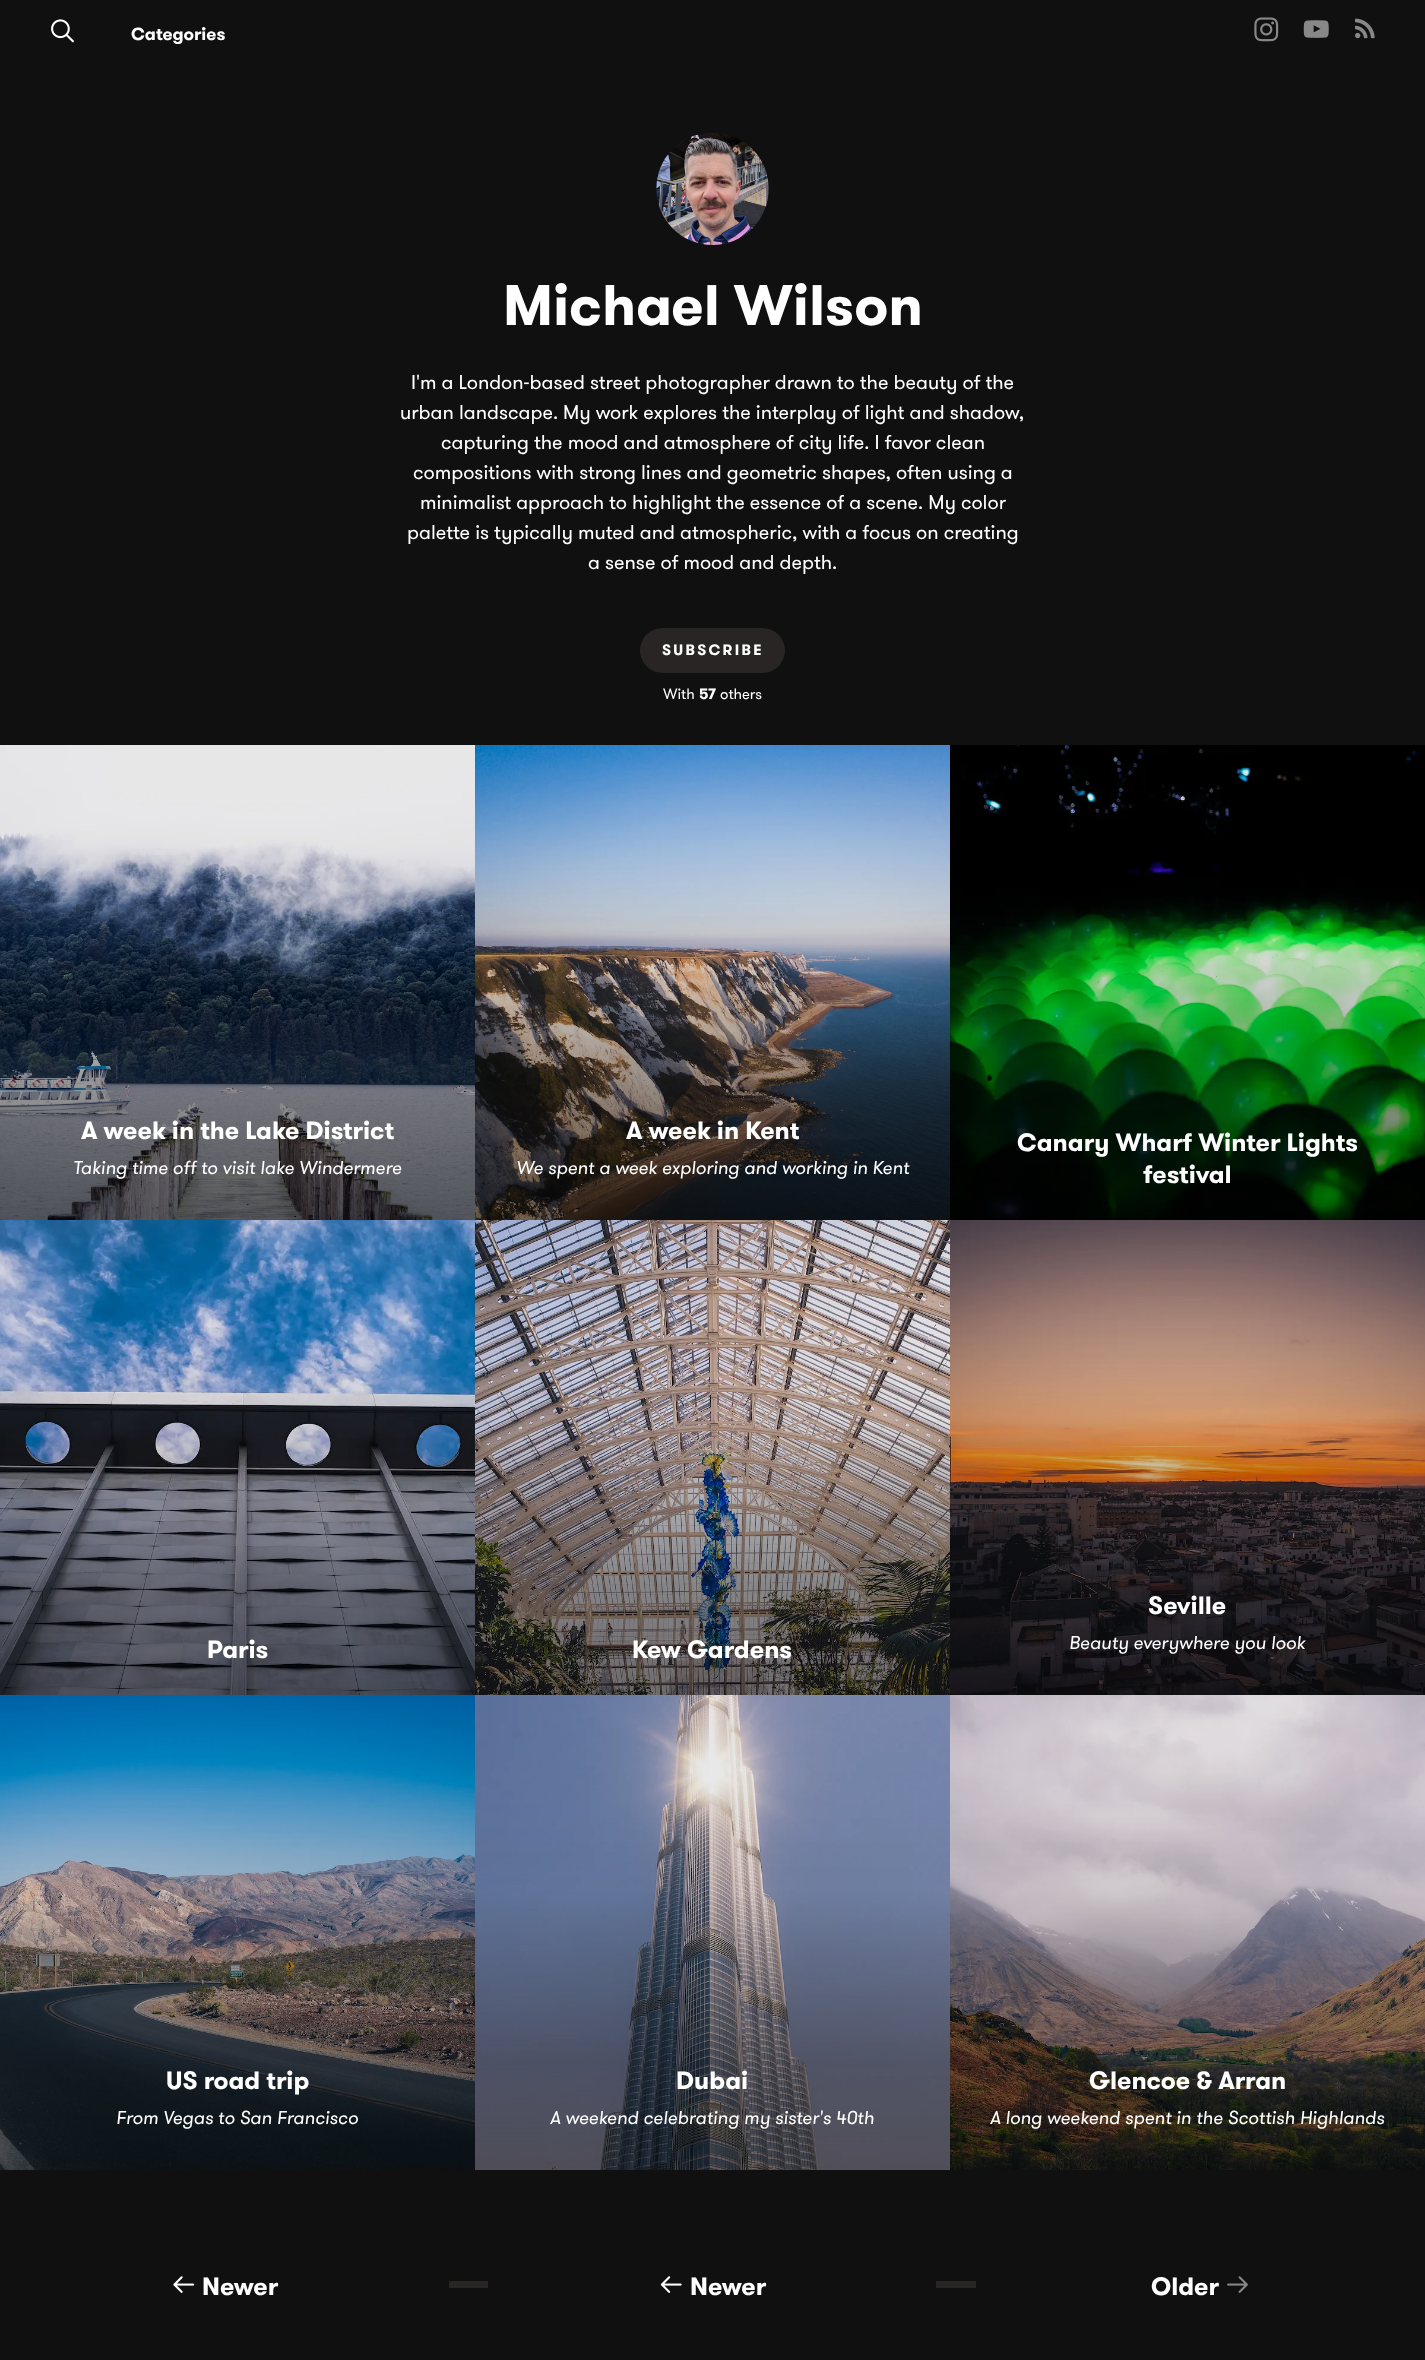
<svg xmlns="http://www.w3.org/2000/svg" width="1425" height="2360">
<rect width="100%" height="100%" fill="#101010"/>
<image x="51" y="19" width="23" height="24" href="media/1.png"/>
<text x="131" y="40" style="font-family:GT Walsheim;font-size:17.5px;font-weight:bold;fill:#fff">Categories</text>
<image x="1254" y="17" width="25" height="25" href="media/2.png"/>
<image x="1303" y="20" width="26" height="18" href="media/3.png"/>
<image x="1355" y="18" width="20" height="21" href="media/4.png"/>
<image x="656" y="133" width="113" height="112" href="media/5.png"/>
<text x="503" y="325" style="font-family:GT Walsheim;font-size:57px;font-weight:bold;fill:#fff">Michael Wilson</text>
<text x="411" y="389" style="font-family:GT Walsheim;font-size:20px;fill:#fff">I'm a London-based street photographer drawn to the beauty of the</text>
<text x="400" y="419" style="font-family:GT Walsheim;font-size:20px;fill:#fff">urban landscape. My work explores the interplay of light and shadow,</text>
<text x="441" y="449" style="font-family:GT Walsheim;font-size:20px;fill:#fff">capturing the mood and atmosphere of city life. I favor clean</text>
<text x="413" y="479" style="font-family:GT Walsheim;font-size:20px;fill:#fff">compositions with strong lines and geometric shapes, often using a</text>
<text x="420" y="509" style="font-family:GT Walsheim;font-size:20px;fill:#fff">minimalist approach to highlight the essence of a scene. My color</text>
<text x="407" y="539" style="font-family:GT Walsheim;font-size:20px;fill:#fff">palette is typically muted and atmospheric, with a focus on creating</text>
<text x="588" y="569" style="font-family:GT Walsheim;font-size:20px;fill:#fff">a sense of mood and depth.</text>
<rect x="640" y="628" width="145" height="45" rx="22.5" fill="#292525"/>
<text x="662" y="655" style="font-family:GT Walsheim;font-size:15px;font-weight:bold;letter-spacing:2.25px;fill:#fff">SUBSCRIBE</text>
<text x="663" y="699" style="font-family:GT Walsheim;font-size:15px;fill:#fff">With</text>
<text x="699" y="699" style="font-family:GT Walsheim;font-size:15px;font-weight:bold;fill:#fff">57</text>
<text x="720" y="699" style="font-family:GT Walsheim;font-size:15px;fill:#fff">others</text>
<image x="0" y="745" width="475" height="475" href="media/6.png"/>
<text x="81" y="1139" style="font-family:GT Walsheim;font-size:25px;font-weight:bold;fill:#fff">A week in the Lake District</text>
<text x="73" y="1174" style="font-family:GT Walsheim;font-size:18.75px;font-style:italic;fill:#fff">Taking time off to visit lake Windermere</text>
<image x="475" y="745" width="475" height="475" href="media/7.png"/>
<text x="626" y="1139" style="font-family:GT Walsheim;font-size:25px;font-weight:bold;fill:#fff">A week in Kent</text>
<text x="516" y="1174" style="font-family:GT Walsheim;font-size:18.75px;font-style:italic;fill:#fff">We spent a week exploring and working in Kent</text>
<image x="950" y="745" width="475" height="475" href="media/8.png"/>
<text x="1017" y="1151" style="font-family:GT Walsheim;font-size:25px;font-weight:bold;fill:#fff">Canary Wharf Winter Lights</text>
<text x="1143" y="1183" style="font-family:GT Walsheim;font-size:25px;font-weight:bold;fill:#fff">festival</text>
<image x="0" y="1220" width="475" height="475" href="media/9.png"/>
<text x="207" y="1658" style="font-family:GT Walsheim;font-size:25px;font-weight:bold;fill:#fff">Paris</text>
<image x="475" y="1220" width="475" height="475" href="media/10.png"/>
<text x="632" y="1658" style="font-family:GT Walsheim;font-size:25px;font-weight:bold;fill:#fff">Kew Gardens</text>
<image x="950" y="1220" width="475" height="475" href="media/11.png"/>
<text x="1148" y="1614" style="font-family:GT Walsheim;font-size:25px;font-weight:bold;fill:#fff">Seville</text>
<text x="1069" y="1649" style="font-family:GT Walsheim;font-size:18.75px;font-style:italic;fill:#fff">Beauty everywhere you look</text>
<image x="0" y="1695" width="475" height="475" href="media/12.png"/>
<text x="166" y="2089" style="font-family:GT Walsheim;font-size:25px;font-weight:bold;fill:#fff">US road trip</text>
<text x="116" y="2124" style="font-family:GT Walsheim;font-size:18.75px;font-style:italic;fill:#fff">From Vegas to San Francisco</text>
<image x="475" y="1695" width="475" height="475" href="media/13.png"/>
<text x="676" y="2089" style="font-family:GT Walsheim;font-size:25px;font-weight:bold;fill:#fff">Dubai</text>
<text x="550" y="2124" style="font-family:GT Walsheim;font-size:18.75px;font-style:italic;fill:#fff">A weekend celebrating my sister's 40th</text>
<image x="950" y="1695" width="475" height="475" href="media/14.png"/>
<text x="1089" y="2089" style="font-family:GT Walsheim;font-size:25px;font-weight:bold;fill:#fff">Glencoe &amp; Arran</text>
<text x="990" y="2124" style="font-family:GT Walsheim;font-size:18.75px;font-style:italic;fill:#fff">A long weekend spent in the Scottish Highlands</text>
<image x="173" y="2276" width="22" height="17" href="media/15.png"/>
<text x="202" y="2295" style="font-family:GT Walsheim;font-size:25px;font-weight:bold;fill:#fff">Newer</text>
<rect x="449" y="2281" width="39" height="7" fill="#292525"/>
<image x="660" y="2276" width="22" height="17" href="media/16.png"/>
<text x="690" y="2295" style="font-family:GT Walsheim;font-size:25px;font-weight:bold;fill:#fff">Newer</text>
<rect x="936" y="2281" width="40" height="7" fill="#292525"/>
<text x="1151" y="2295" style="font-family:GT Walsheim;font-size:25px;font-weight:bold;fill:#fff">Older</text>
<image x="1227" y="2276" width="21" height="17" href="media/17.png"/>
</svg>
